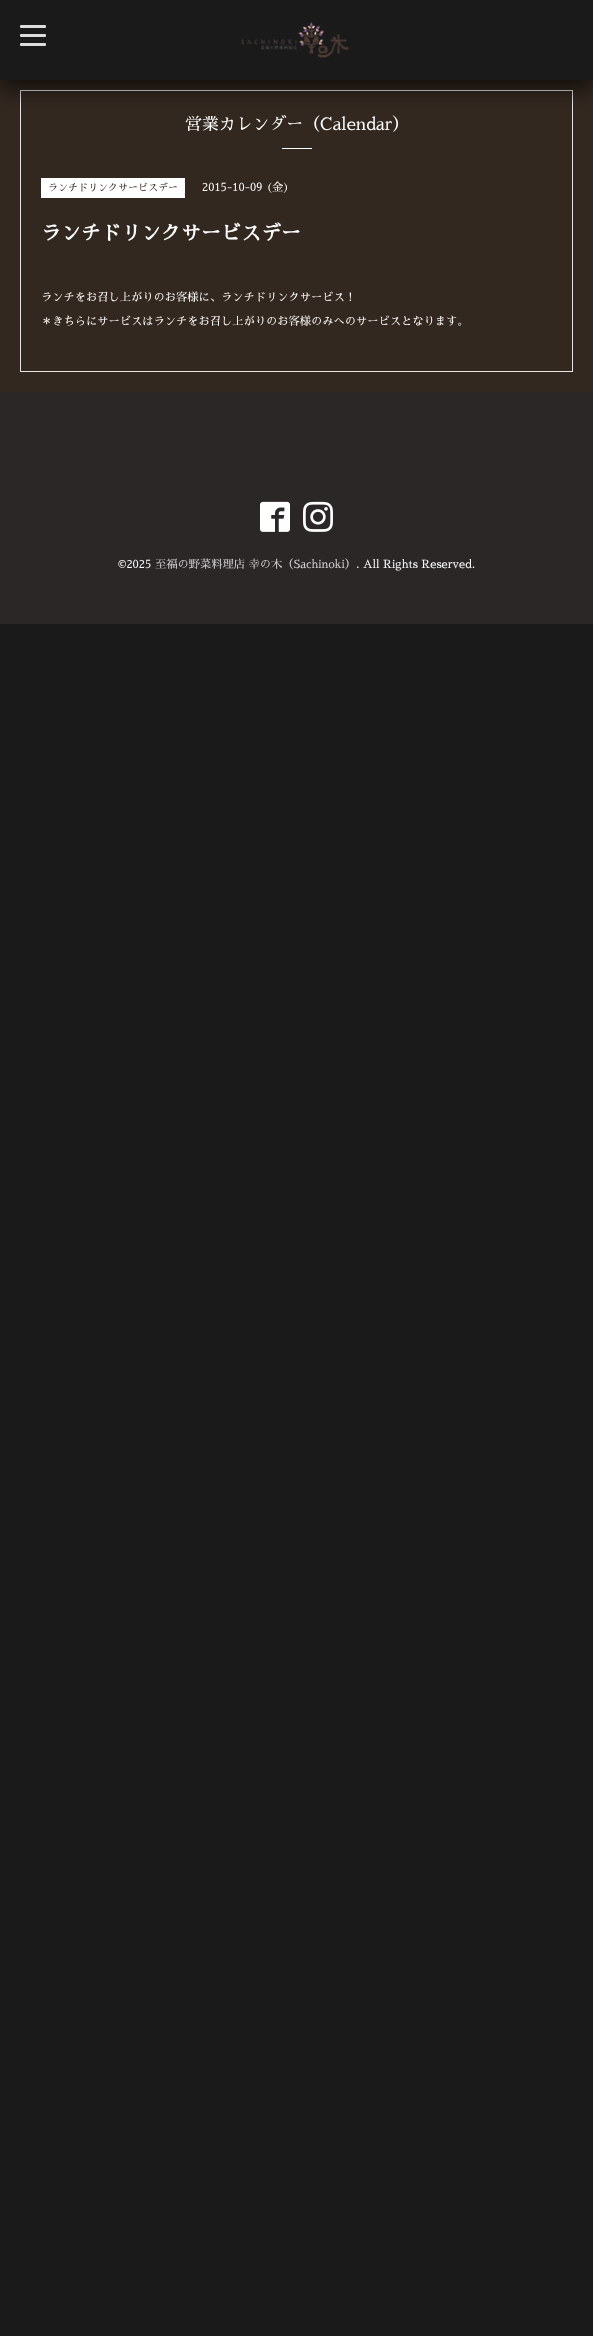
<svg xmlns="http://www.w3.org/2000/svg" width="593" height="2336">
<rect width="100%" height="100%" fill="#1a1a1a"/>
<rect y="80" width="593" height="312" fill="#332820"/>
<rect x="20.5" y="90.5" width="552" height="281" fill="none" stroke="#e6e6e6"/>
<rect y="10" width="593" height="80" fill="#00000099" filter="blur(10px)"/>
<rect width="593" height="80" fill="#1a1a1a"/>
<rect x="20" y="34" width="26" height="3" rx="1" fill="#ddd"/>
<rect x="20" y="25" width="26" height="3" rx="1" fill="#ddd"/>
<rect x="20" y="43" width="26" height="3" rx="1" fill="#ddd"/>
<image x="241" y="22" width="108" height="36" href="media/1.png"/>
<text x="185" y="130" style="font-family:Sawarabi Mincho;font-size:16.9px;fill:#fff">営業カレンダー（Calendar）</text>
<rect x="282" y="148" width="30" height="1" fill="#fff"/>
<rect x="41" y="178" width="144" height="20" fill="#fff"/>
<text x="48" y="191" style="font-family:Sawarabi Mincho;font-size:10px;fill:#332820">ランチドリンクサービスデー</text>
<text x="202" y="191" style="font-family:Sawarabi Mincho;font-size:11.25px;fill:#fff">2015-10-09 (金)</text>
<text x="41" y="240" style="font-family:Sawarabi Mincho;font-size:20px;font-weight:bold;fill:#fff">ランチドリンクサービスデー</text>
<text x="41" y="301" style="font-family:Sawarabi Mincho;font-size:11.25px;fill:#fff">ランチをお召し上がりのお客様に、ランチドリンクサービス！</text>
<text x="41" y="325" style="font-family:Sawarabi Mincho;font-size:11.25px;fill:#fff">＊きちらにサービスはランチをお召し上がりのお客様のみへのサービスとなります。</text>
<rect y="392" width="593" height="232" fill="#2b2727"/>
<image x="260" y="501" width="30" height="31" href="media/2.png"/>
<image x="303" y="501" width="30" height="31" href="media/3.png"/>
<text x="118" y="568" style="font-family:Sawarabi Mincho;font-size:11.25px;fill:#fff">©2025</text>
<text x="155" y="568" style="font-family:Sawarabi Mincho;font-size:11.25px;fill:#d5d4d4">至福の野菜料理店 幸の木（Sachinoki）</text>
<text x="356" y="568" style="font-family:Sawarabi Mincho;font-size:11.25px;fill:#fff">. All Rights Reserved.</text>
</svg>
